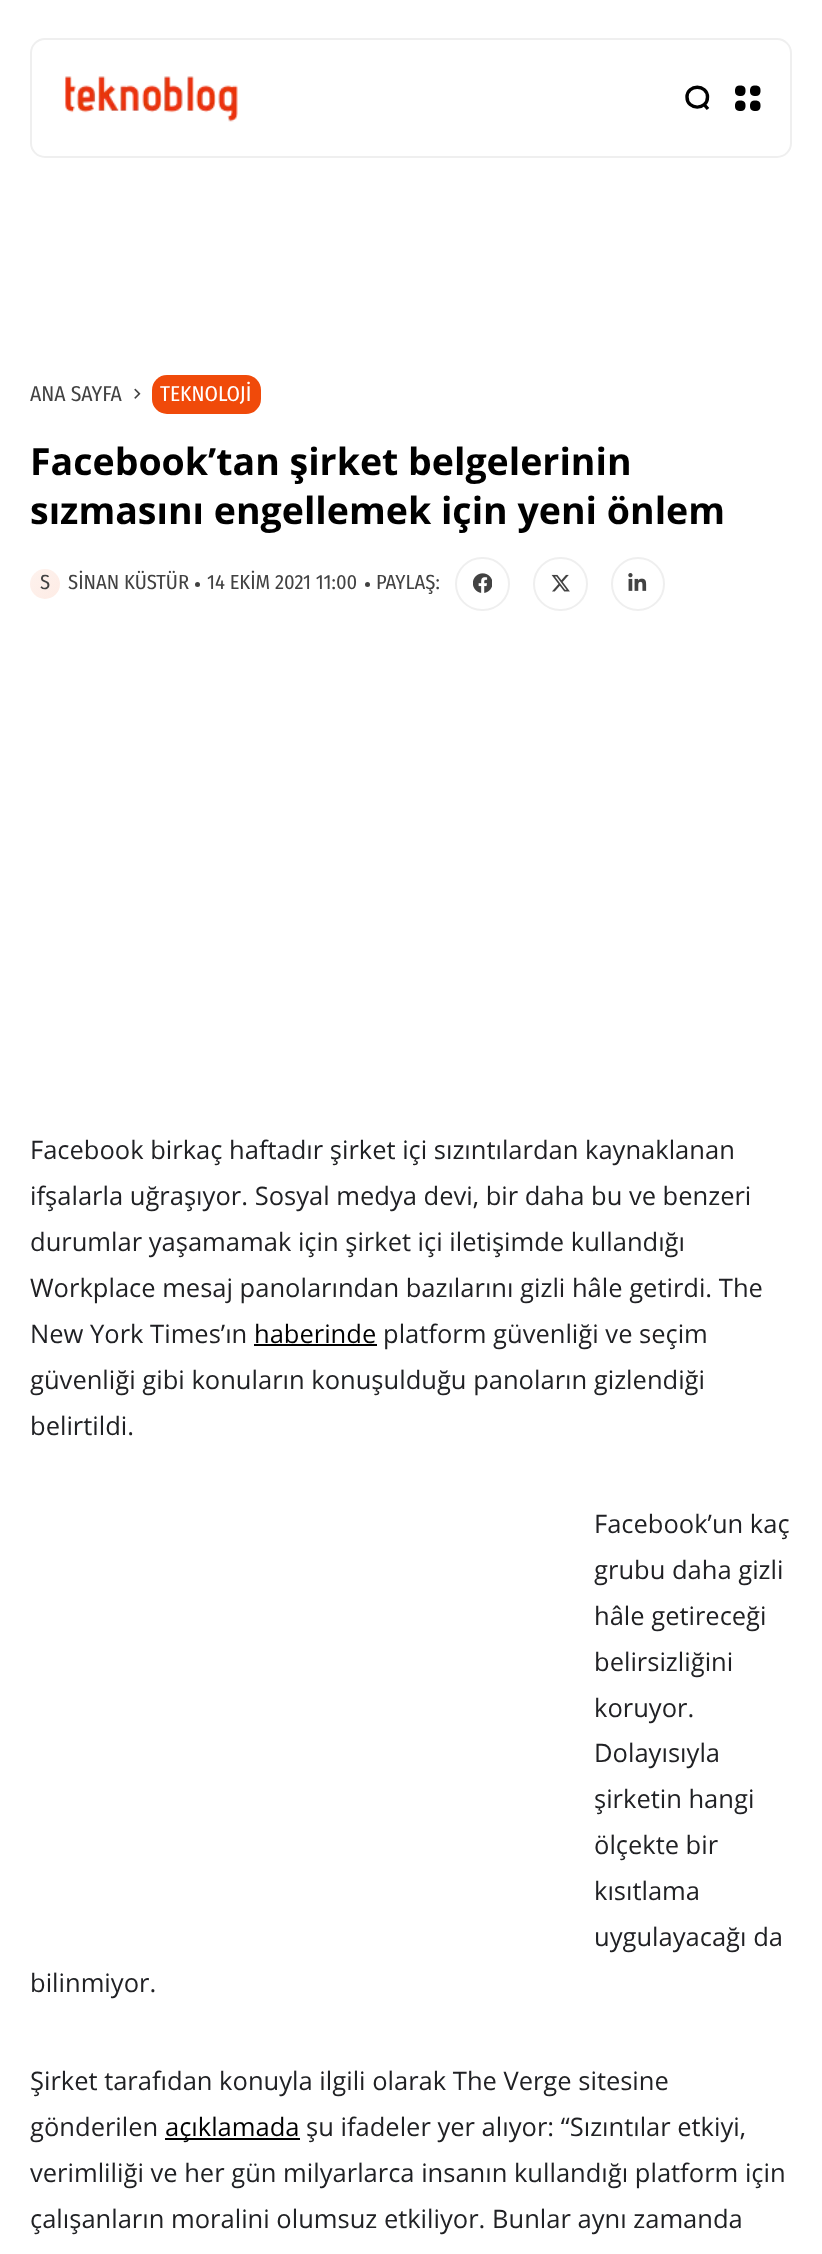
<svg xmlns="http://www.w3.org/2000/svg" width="822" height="2254">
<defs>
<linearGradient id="g1" gradientUnits="userSpaceOnUse" x1="810" y1="1349" x2="-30" y2="509"><stop offset="0" stop-color="#f04a0a"/><stop offset="1" stop-color="#fff"/></linearGradient>
</defs>
<rect width="100%" height="100%" fill="#fff"/>
<rect x="31" y="39" width="760" height="118" rx="14" fill="none" stroke="#efefef" stroke-width="2"/>
<image x="65" y="76" width="173" height="46" href="media/1.png"/>
<path d="M687 97c0 13.5 20.5 13.5 20.5 0c0-13-20.5-13-20.5 0m17.5 8l3.5 4" fill="none" stroke="#000" stroke-width="3.4"/>
<image x="735" y="85" width="26" height="26" href="media/2.png"/>
<text x="30" y="401" style="font-family:Fira Sans Condensed;font-size:21.5px;fill:#424242">ANA SAYFA</text>
<image x="134" y="388" width="7" height="11" href="media/3.png"/>
<rect x="152" y="375" width="109" height="39" rx="15" fill="#f04a0a"/>
<text x="160" y="401" style="font-family:Fira Sans Condensed;font-size:21.5px;fill:#fff">TEKNOLOJİ</text>
<text x="30" y="475" style="font-family:Open Sans;font-size:37.5px;font-weight:bold;fill:#000">Facebook’tan şirket belgelerinin</text>
<text x="30" y="524" style="font-family:Open Sans;font-size:37.5px;font-weight:bold;fill:#000">sızmasını engellemek için yeni önlem</text>
<circle cx="45" cy="584" r="15" fill="url(#g1)"/>
<text x="40" y="589" style="font-family:Fira Sans Condensed;font-size:20.5px;fill:#424242">S</text>
<text x="68" y="589" style="font-family:Fira Sans Condensed;font-size:20.5px;fill:#424242">SİNAN KÜSTÜR</text>
<circle cx="197.5" cy="584.5" r="2.5" fill="#424242"/>
<text x="207" y="589" style="font-family:Fira Sans Condensed;font-size:20.5px;fill:#424242">14 EKİM 2021 11:00</text>
<circle cx="367.5" cy="584.5" r="2.5" fill="#424242"/>
<text x="376" y="589" style="font-family:Fira Sans Condensed;font-size:20.5px;fill:#424242">PAYLAŞ:</text>
<rect x="456" y="558" width="53" height="52" rx="26" fill="none" stroke="#efefef" stroke-width="2"/>
<image x="473" y="573" width="19" height="20" href="media/4.png"/>
<rect x="534" y="558" width="53" height="52" rx="26" fill="none" stroke="#efefef" stroke-width="2"/>
<image x="551" y="574" width="19" height="18" href="media/5.png"/>
<circle cx="638" cy="584" r="26" fill="none" stroke="#efefef" stroke-width="2"/>
<image x="628" y="573" width="19" height="18" href="media/6.png"/>
<text x="30" y="1159" style="font-family:Open Sans;font-size:25.5px;fill:#202124">Facebook birkaç haftadır şirket içi sızıntılardan kaynaklanan</text>
<text x="30" y="1205" style="font-family:Open Sans;font-size:25.5px;fill:#202124">ifşalarla uğraşıyor. Sosyal medya devi, bir daha bu ve benzeri</text>
<text x="30" y="1251" style="font-family:Open Sans;font-size:25.5px;fill:#202124">durumlar yaşamamak için şirket içi iletişimde kullandığı</text>
<text x="30" y="1297" style="font-family:Open Sans;font-size:25.5px;fill:#202124">Workplace mesaj panolarından bazılarını gizli hâle getirdi. The</text>
<text x="30" y="1343" style="font-family:Open Sans;font-size:25.5px;fill:#202124">New York Times’ın</text>
<text x="254" y="1343" style="font-family:Open Sans;font-size:25.5px;fill:#000">haberinde</text>
<rect x="254" y="1344" width="123" height="2" fill="#000"/>
<text x="383" y="1343" style="font-family:Open Sans;font-size:25.5px;fill:#202124">platform güvenliği ve seçim</text>
<text x="30" y="1389" style="font-family:Open Sans;font-size:25.5px;fill:#202124">güvenliği gibi konuların konuşulduğu panoların gizlendiği</text>
<text x="30" y="1435" style="font-family:Open Sans;font-size:25.5px;fill:#202124">belirtildi.</text>
<text x="594" y="1533" style="font-family:Open Sans;font-size:25.5px;fill:#202124">Facebook’un kaç</text>
<text x="594" y="1579" style="font-family:Open Sans;font-size:25.5px;fill:#202124">grubu daha gizli</text>
<text x="594" y="1625" style="font-family:Open Sans;font-size:25.5px;fill:#202124">hâle getireceği</text>
<text x="594" y="1671" style="font-family:Open Sans;font-size:25.5px;fill:#202124">belirsizliğini</text>
<text x="594" y="1717" style="font-family:Open Sans;font-size:25.5px;fill:#202124">koruyor.</text>
<text x="594" y="1762" style="font-family:Open Sans;font-size:25.5px;fill:#202124">Dolayısıyla</text>
<text x="594" y="1808" style="font-family:Open Sans;font-size:25.5px;fill:#202124">şirketin hangi</text>
<text x="594" y="1854" style="font-family:Open Sans;font-size:25.5px;fill:#202124">ölçekte bir</text>
<text x="594" y="1900" style="font-family:Open Sans;font-size:25.5px;fill:#202124">kısıtlama</text>
<text x="594" y="1946" style="font-family:Open Sans;font-size:25.5px;fill:#202124">uygulayacağı da</text>
<text x="30" y="1992" style="font-family:Open Sans;font-size:25.5px;fill:#202124">bilinmiyor.</text>
<text x="30" y="2090" style="font-family:Open Sans;font-size:25.5px;fill:#202124">Şirket tarafıdan konuyla ilgili olarak The Verge sitesine</text>
<text x="30" y="2136" style="font-family:Open Sans;font-size:25.5px;fill:#202124">gönderilen</text>
<rect x="165" y="2138" width="135" height="2" fill="#000"/>
<text x="165" y="2136" style="font-family:Open Sans;font-size:25.5px;fill:#000">açıklamada</text>
<text x="306" y="2136" style="font-family:Open Sans;font-size:25.5px;fill:#202124">şu ifadeler yer alıyor: “Sızıntılar etkiyi,</text>
<text x="30" y="2182" style="font-family:Open Sans;font-size:25.5px;fill:#202124">verimliliği ve her gün milyarlarca insanın kullandığı platform için</text>
<text x="30" y="2228" style="font-family:Open Sans;font-size:25.5px;fill:#202124">çalışanların moralini olumsuz etkiliyor. Bunlar aynı zamanda</text>
</svg>
